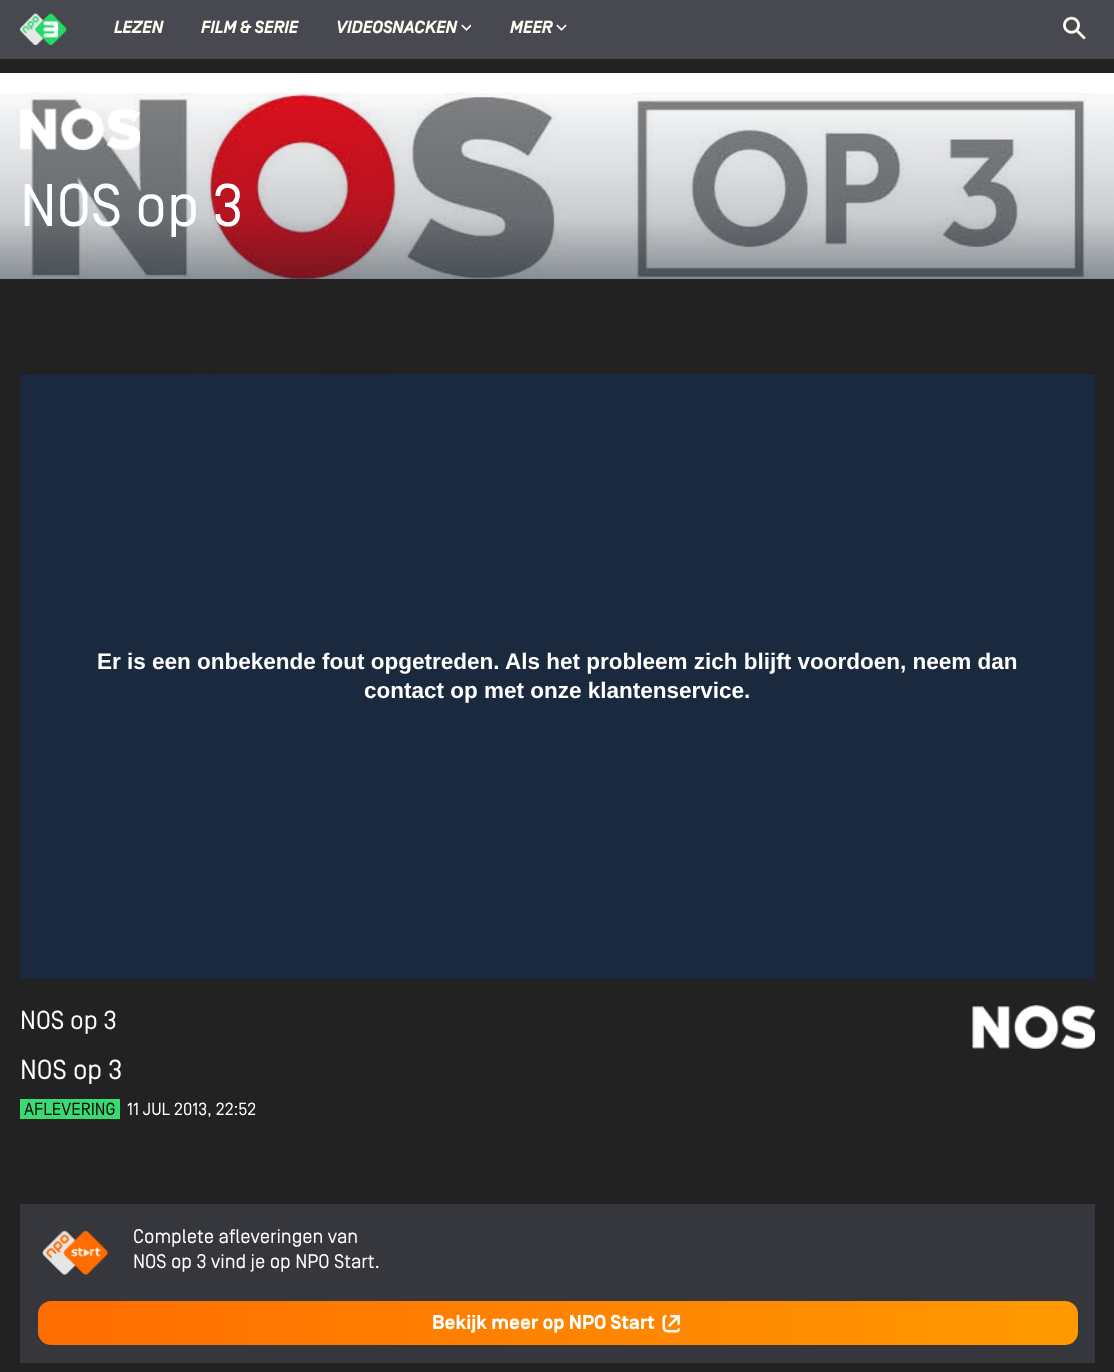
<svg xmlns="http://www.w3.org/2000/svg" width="1114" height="1372">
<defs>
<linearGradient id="g1" gradientUnits="userSpaceOnUse" x1="558" y1="72" x2="558" y2="279"><stop offset="0" stop-color="#000" stop-opacity="0"/><stop offset="0.7" stop-color="#000" stop-opacity="0.15"/><stop offset="1" stop-color="#000" stop-opacity="0.4"/></linearGradient>
<linearGradient id="g2" gradientUnits="userSpaceOnUse" x1="558" y1="-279" x2="558" y2="279"><stop offset="0" stop-color="#335878" stop-opacity="0"/><stop offset="0.65" stop-color="#335878" stop-opacity="0.01"/><stop offset="0.8" stop-color="#335878" stop-opacity="0.05"/><stop offset="1" stop-color="#335878" stop-opacity="0.15"/></linearGradient>
<linearGradient id="g3" gradientUnits="userSpaceOnUse" x1="38" y1="1323" x2="1078" y2="1323"><stop offset="0" stop-color="#ff6d00"/><stop offset="1" stop-color="#f90"/></linearGradient>
</defs>
<rect width="100%" height="100%" fill="#222"/>
<rect width="1114" height="59" fill="#484950"/>
<image x="20" y="13" width="47" height="32" href="media/1.png"/>
<text x="114" y="33" style="font-family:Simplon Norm;font-size:17.5px;font-weight:bold;font-style:italic;fill:#fffdf4">LEZEN</text>
<text x="201" y="33" style="font-family:Simplon Norm;font-size:17.5px;font-weight:bold;font-style:italic;fill:#fffdf4">FILM &amp; SERIE</text>
<text x="336" y="33" style="font-family:Simplon Norm;font-size:17.5px;font-weight:bold;font-style:italic;fill:#fffdf4">VIDEOSNACKEN</text>
<image x="461" y="24" width="10" height="7" href="media/2.png"/>
<text x="510" y="33" style="font-family:Simplon Norm;font-size:17.5px;font-weight:bold;font-style:italic;fill:#fffdf4">MEER</text>
<image x="556" y="24" width="11" height="7" href="media/3.png"/>
<image x="1063" y="16" width="23" height="24" href="media/4.png"/>
<image x="0" y="73" width="1114" height="206" href="media/5.png"/>
<rect y="93" width="1114" height="186" fill="url(#g1)"/>
<rect y="108" width="1114" height="171" fill="url(#g2)"/>
<image x="20" y="107" width="120" height="43" href="media/6.png"/>
<text x="20" y="226" style="font-family:Simplon Norm;font-size:60px;fill:#fff">NOS op 3</text>
<image x="20" y="373" width="1075" height="1" href="media/7.png"/>
<rect x="20" y="374" width="1075" height="605" fill="#1b293f"/>
<text x="97" y="669" style="font-family:Liberation Sans;font-size:22.5px;font-weight:bold;fill:#fff">Er is een onbekende fout opgetreden. Als het probleem zich blijft voordoen, neem dan</text>
<text x="364" y="698" style="font-family:Liberation Sans;font-size:22.5px;font-weight:bold;fill:#fff">contact op met onze klantenservice.</text>
<text x="20" y="1029" style="font-family:Simplon Norm;font-size:26px;fill:#fff">NOS op 3</text>
<image x="972" y="1005" width="123" height="44" href="media/8.png"/>
<text x="20" y="1079" style="font-family:Simplon Norm;font-size:27.5px;fill:#fff">NOS op 3</text>
<rect x="20" y="1099" width="100" height="20" fill="#3bd972"/>
<text x="24" y="1115" style="font-family:Simplon Norm;font-size:17.5px;fill:#000">AFLEVERING</text>
<text x="127" y="1115" style="font-family:Simplon Norm;font-size:17.5px;fill:#fff">11 JUL 2013, 22:52</text>
<rect x="20" y="1204" width="1075" height="159" fill="#36373c"/>
<image x="42" y="1230" width="67" height="45" href="media/9.png"/>
<text x="133" y="1243" style="font-family:Simplon Norm;font-size:19.75px;fill:#fff">Complete afleveringen van</text>
<text x="133" y="1268" style="font-family:Simplon Norm;font-size:19.75px;fill:#fff">NOS op 3 vind je op NPO Start.</text>
<rect x="38" y="1301" width="1040" height="44" rx="13" fill="url(#g3)"/>
<text x="432" y="1329" style="font-family:Simplon Norm;font-size:20px;font-weight:bold;fill:#fff">Bekijk meer op NPO Start</text>
<image x="662" y="1315" width="18" height="18" href="media/10.png"/>
</svg>
